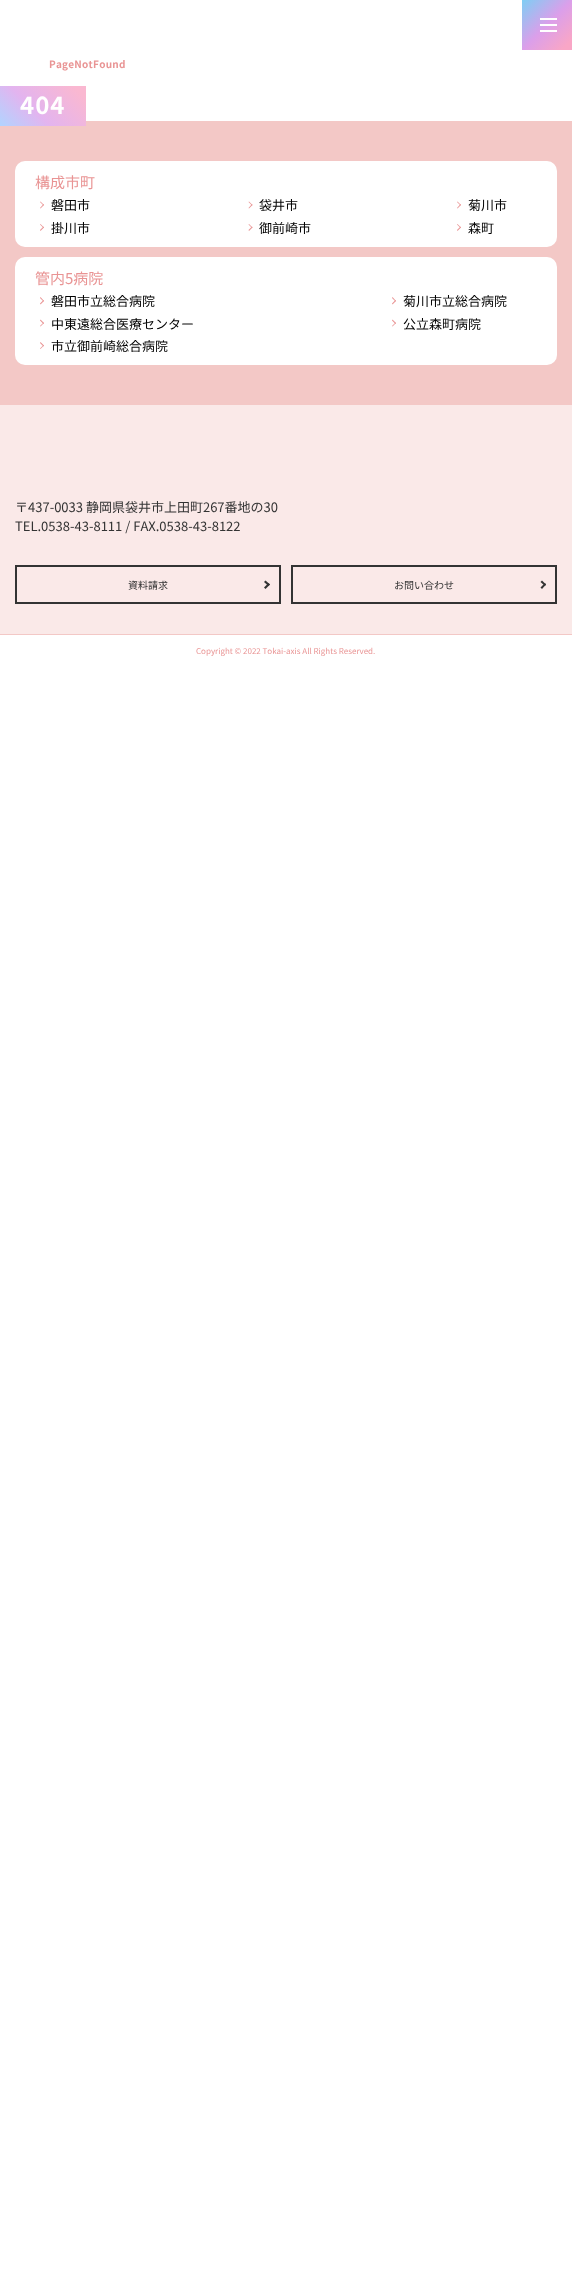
<svg xmlns="http://www.w3.org/2000/svg" width="572" height="2270">
<style>*{font-kerning:none!important;font-variant-ligatures:none!important}</style>
<defs>
<linearGradient id="g1" gradientUnits="userSpaceOnUse" x1="522" y1="0" x2="572" y2="50"><stop offset="0" stop-color="#7ecef4"/><stop offset="0.5" stop-color="#db9fea"/><stop offset="0.9" stop-color="#f9a6c6"/></linearGradient>
<linearGradient id="g2" gradientUnits="userSpaceOnUse" x1="12" y1="138" x2="75" y2="75"><stop offset="0" stop-color="#b1d4ff"/><stop offset="0.4" stop-color="#e3b4ef"/><stop offset="0.9" stop-color="#fab8d1"/></linearGradient>
</defs>
<rect width="100%" height="100%" fill="#fff"/>
<rect x="522" width="50" height="50" fill="url(#g1)"/>
<rect x="540" y="18" width="17" height="2" fill="#fff"/>
<rect x="540" y="24" width="17" height="2" fill="#fff"/>
<rect x="540" y="30" width="17" height="2" fill="#fff"/>
<text x="49" y="68" style="font-family:Noto Sans JP;font-size:10px;font-weight:bold;letter-spacing:0.25px;fill:#e99494">PageNotFound</text>
<rect y="121" width="572" height="284" fill="#f3c8c6"/>
<rect y="86" width="86" height="40" fill="url(#g2)"/>
<text x="20" y="114" style="font-family:Noto Sans JP;font-size:24px;font-weight:bold;letter-spacing:1px;fill:#fff">404</text>
<rect x="15" y="161" width="542" height="86" rx="10" fill="#fff"/>
<text x="35" y="188" style="font-family:Noto Sans JP;font-size:15px;fill:#e99494">構成市町</text>
<path d="M40.5 201.5l3.5 3.5l-.5 .5l-3.5-3.5z" fill="#e99494"/>
<path d="M43.5 204l.5 1l-3.5 3.5l-.5-.5z" fill="#e99494"/>
<text x="51" y="210" style="font-family:Noto Sans JP;font-size:13px;fill:#000">磐田市</text>
<path d="M40.5 224l3.5 3.5l-.5 .5l-3.5-3.5z" fill="#e99494"/>
<path d="M43.5 226.5l.5 1l-3.5 3.5l-.5-1z" fill="#e99494"/>
<text x="51" y="233" style="font-family:Noto Sans JP;font-size:13px;fill:#000">掛川市</text>
<path d="M249 201.5l3.5 3.5l-.5 .5l-3.5-3.5z" fill="#e99494"/>
<path d="M252 204l.5 1l-3.5 3.5l-.5-.5z" fill="#e99494"/>
<text x="259" y="210" style="font-family:Noto Sans JP;font-size:13px;fill:#000">袋井市</text>
<path d="M249 224l3.5 3.5l-.5 .5l-3.5-3.5z" fill="#e99494"/>
<path d="M252 226.5l.5 1l-3.5 3.5l-.5-1z" fill="#e99494"/>
<text x="259" y="233" style="font-family:Noto Sans JP;font-size:13px;fill:#000">御前崎市</text>
<path d="M457.5 201.5l3.5 3.5l-.5 .5l-3.5-3.5z" fill="#e99494"/>
<path d="M460.5 204l.5 1l-3.5 3.5l-.5-.5z" fill="#e99494"/>
<text x="468" y="210" style="font-family:Noto Sans JP;font-size:13px;fill:#000">菊川市</text>
<path d="M457.5 224l3.5 3.5l-.5 .5l-3.5-3.5z" fill="#e99494"/>
<path d="M460.5 226.5l.5 1l-3.5 3.5l-.5-1z" fill="#e99494"/>
<text x="468" y="233" style="font-family:Noto Sans JP;font-size:13px;fill:#000">森町</text>
<rect x="15" y="257" width="542" height="108" rx="10" fill="#fff"/>
<text x="35" y="284" style="font-family:Noto Sans JP;font-size:15px;fill:#e99494">管内5病院</text>
<path d="M40.5 297l3.5 4l-.5 .5l-3.5-3.5z" fill="#e99494"/>
<path d="M43.5 300l.5 1l-3.5 3.5l-.5-1z" fill="#e99494"/>
<text x="51" y="306" style="font-family:Noto Sans JP;font-size:13px;fill:#000">磐田市立総合病院</text>
<path d="M40.5 319.5l3.5 3.5l-.5 1l-3.5-3.5z" fill="#e99494"/>
<path d="M43.5 322.5l.5 .5l-3.5 3.5l-.5-.5z" fill="#e99494"/>
<text x="51" y="329" style="font-family:Noto Sans JP;font-size:13px;fill:#000">中東遠総合医療センター</text>
<path d="M40.5 342l3.5 3.5l-.5 1l-3.5-3.5z" fill="#e99494"/>
<path d="M43.5 345l.5 .5l-3.5 3.5l-.5-.5z" fill="#e99494"/>
<text x="51" y="351" style="font-family:Noto Sans JP;font-size:13px;fill:#000">市立御前崎総合病院</text>
<path d="M392.5 297l3.5 4l-.5 .5l-3.5-3.5z" fill="#e99494"/>
<path d="M395.5 300l.5 1l-3.5 3.5l-.5-1z" fill="#e99494"/>
<text x="403" y="306" style="font-family:Noto Sans JP;font-size:13px;fill:#000">菊川市立総合病院</text>
<path d="M392.5 319.5l3.5 3.5l-.5 1l-3.5-3.5z" fill="#e99494"/>
<path d="M395.5 322.5l.5 .5l-3.5 3.5l-.5-.5z" fill="#e99494"/>
<text x="403" y="329" style="font-family:Noto Sans JP;font-size:13px;fill:#000">公立森町病院</text>
<rect y="405" width="572" height="229" fill="#fae9e8"/>
<rect y="634" width="572" height="1" fill="#f3c8c6"/>
<text x="15" y="512" style="font-family:Noto Sans JP;font-size:13px;fill:#333">〒437-0033 静岡県袋井市上田町267番地の30</text>
<text x="15" y="531" style="font-family:Noto Sans JP;font-size:13px;fill:#333">TEL.0538-43-8111 / FAX.0538-43-8122</text>
<rect x="16" y="566" width="264" height="37" fill="none" stroke="#333" stroke-width="2"/>
<text x="128" y="589" style="font-family:Noto Sans JP;font-size:10px;fill:#333">資料請求</text>
<path d="M265.5 580.5l4.5 4l-1.5 1.5l-4.5-4z" fill="#333"/>
<path d="M268.5 583l1.5 1.5l-4.5 4.5l-1.5-1.5z" fill="#333"/>
<rect x="292" y="566" width="264" height="37" fill="none" stroke="#333" stroke-width="2"/>
<text x="394" y="589" style="font-family:Noto Sans JP;font-size:10px;fill:#333">お問い合わせ</text>
<path d="M542 580.5l4 4l-1 1.5l-4.5-4z" fill="#333"/>
<path d="M545 583l1 1.5l-4 4.5l-1.5-1.5z" fill="#333"/>
<text x="196" y="654" style="font-family:Noto Sans JP;font-size:8px;fill:#e99494">Copyright © 2022 Tokai-axis All Rights Reserved.</text>
</svg>
